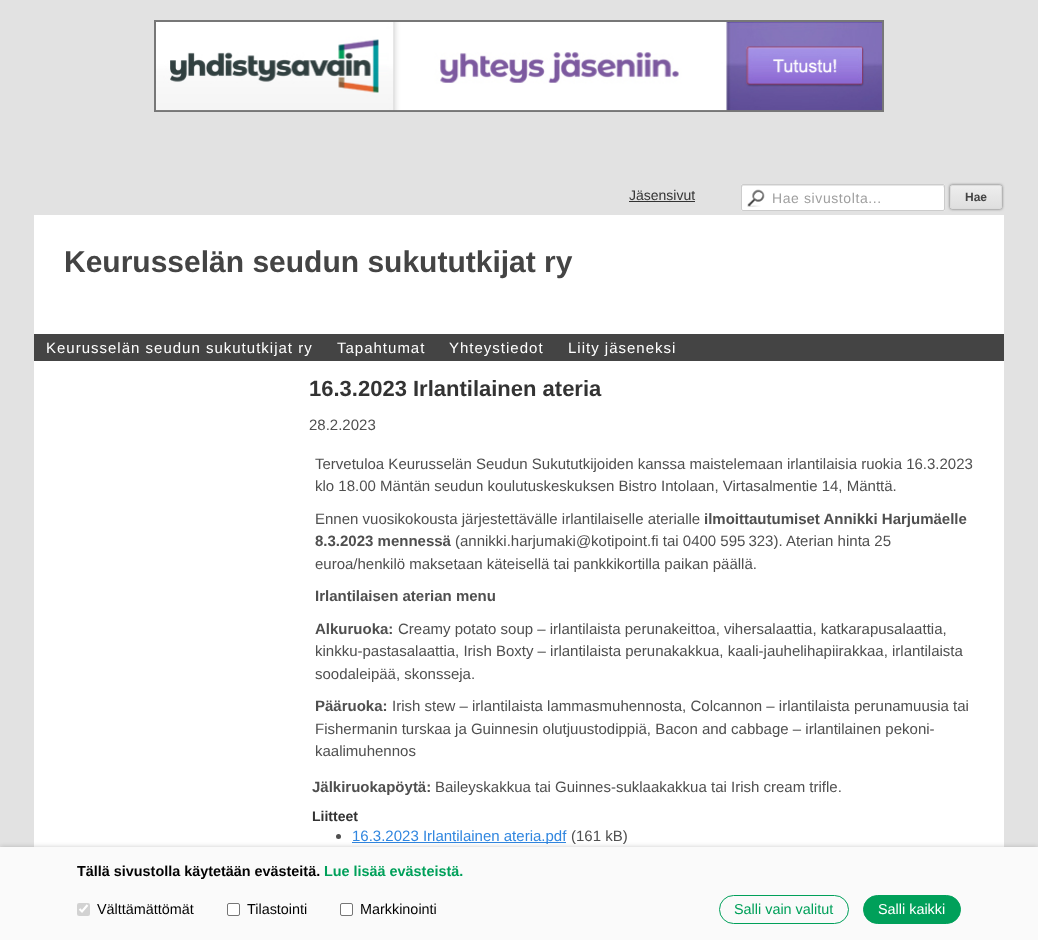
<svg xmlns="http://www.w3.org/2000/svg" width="1038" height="940">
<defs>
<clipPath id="clip1"><rect x="950" y="185" width="52" height="24" rx="2"/></clipPath>
<linearGradient id="g1" gradientUnits="userSpaceOnUse" x1="951" y1="186" x2="951" y2="208"><stop offset="0.05" stop-color="#ededed"/><stop offset="1" stop-color="#dfdfdf"/></linearGradient>
<clipPath id="clip2"><rect x="312" y="827" width="674" height="17"/></clipPath>
</defs>
<rect width="100%" height="100%" fill="#e2e2e2"/>
<rect x="154.5" y="20.5" width="729" height="91" fill="none" stroke="#777"/>
<image x="155" y="21" width="728" height="90" href="media/1.png"/>
<text x="629" y="200" style="font-family:Liberation Sans;font-size:14px;fill:#333">Jäsensivut</text>
<rect x="629" y="201" width="66" height="1" fill="#333"/>
<rect x="741" y="184" width="204" height="27" rx="2" fill="#fff"/>
<image x="747" y="189" width="18" height="18" href="media/2.png"/>
<path d="M743 186h200l1 2c0-1 0-3-1-3h-201v2z" fill="#e6e6e6"/>
<rect x="741.5" y="184.5" width="203" height="26" rx="1.5" fill="none" stroke="#ccc"/>
<text x="772" y="203" style="font-family:Liberation Sans;font-size:14px;letter-spacing:0.6px;fill:#9f9f9f">Hae sivustolta...</text>
<rect x="950" y="185" width="52" height="24" rx="2" fill="#666" filter="blur(1.5px)"/>
<g clip-path="url(#clip1)">
<rect x="950" y="186" width="52" height="22" fill="url(#g1)"/>
</g>
<rect x="950.5" y="185.5" width="51" height="23" rx="1.5" fill="none" stroke="#dcdcdc"/>
<text x="965" y="201" style="font-family:Liberation Sans;font-size:12px;font-weight:bold;fill:#444">Hae</text>
<rect x="34" y="215" width="970" height="119" fill="#fff"/>
<text x="64" y="272" style="font-family:Liberation Sans;font-size:30px;font-weight:bold;fill:#444">Keurusselän seudun sukututkijat ry</text>
<rect x="34" y="334" width="970" height="27" fill="#444"/>
<text x="46" y="353" style="font-family:Liberation Sans;font-size:15px;letter-spacing:1px;fill:#fff">Keurusselän seudun sukututkijat ry</text>
<text x="337" y="353" style="font-family:Liberation Sans;font-size:15px;letter-spacing:1px;fill:#fff">Tapahtumat</text>
<text x="449" y="353" style="font-family:Liberation Sans;font-size:15px;letter-spacing:1px;fill:#fff">Yhteystiedot</text>
<text x="568" y="353" style="font-family:Liberation Sans;font-size:15px;letter-spacing:1px;fill:#fff">Liity jäseneksi</text>
<rect x="34" y="361" width="970" height="486" fill="#fff"/>
<text x="309" y="396" style="font-family:Liberation Sans;font-size:22px;font-weight:bold;fill:#333">16.3.2023 Irlantilainen ateria</text>
<text x="309" y="430" style="font-family:Liberation Sans;font-size:15px;fill:#4f4f4f">28.2.2023</text>
<text x="315" y="469" style="font-family:Liberation Sans;font-size:15px;fill:#4f4f4f">Tervetuloa Keurusselän Seudun Sukututkijoiden kanssa maistelemaan irlantilaisia ruokia 16.3.2023</text>
<text x="315" y="491" style="font-family:Liberation Sans;font-size:15px;fill:#4f4f4f">klo 18.00 Mäntän seudun koulutuskeskuksen Bistro Intolaan, Virtasalmentie 14, Mänttä.</text>
<text x="315" y="524" style="font-family:Liberation Sans;font-size:15px;fill:#4f4f4f">Ennen vuosikokousta järjestettävälle irlantilaiselle aterialle</text>
<text x="704" y="524" style="font-family:Liberation Sans;font-size:15px;font-weight:bold;fill:#4f4f4f">ilmoittautumiset Annikki Harjumäelle</text>
<text x="315" y="546" style="font-family:Liberation Sans;font-size:15px;font-weight:bold;fill:#4f4f4f">8.3.2023 mennessä</text>
<text x="455" y="546" style="font-family:Liberation Sans;font-size:15px;fill:#4f4f4f">(annikki.harjumaki@kotipoint.fi tai 0400 595 323). Aterian hinta 25</text>
<text x="315" y="569" style="font-family:Liberation Sans;font-size:15px;fill:#4f4f4f">euroa/henkilö maksetaan käteisellä tai pankkikortilla paikan päällä.</text>
<text x="315" y="601" style="font-family:Liberation Sans;font-size:15px;font-weight:bold;fill:#4f4f4f">Irlantilaisen aterian menu</text>
<text x="315" y="634" style="font-family:Liberation Sans;font-size:15px;font-weight:bold;fill:#4f4f4f">Alkuruoka:</text>
<text x="398" y="634" style="font-family:Liberation Sans;font-size:15px;fill:#4f4f4f">Creamy potato soup – irlantilaista perunakeittoa, vihersalaattia, katkarapusalaattia,</text>
<text x="315" y="656" style="font-family:Liberation Sans;font-size:15px;fill:#4f4f4f">kinkku-pastasalaattia, Irish Boxty – irlantilaista perunakakkua, kaali-jauhelihapiirakkaa, irlantilaista</text>
<text x="315" y="679" style="font-family:Liberation Sans;font-size:15px;fill:#4f4f4f">soodaleipää, skonsseja.</text>
<text x="315" y="711" style="font-family:Liberation Sans;font-size:15px;font-weight:bold;fill:#4f4f4f">Pääruoka:</text>
<text x="392" y="711" style="font-family:Liberation Sans;font-size:15px;fill:#4f4f4f">Irish stew – irlantilaista lammasmuhennosta, Colcannon – irlantilaista perunamuusia tai</text>
<text x="315" y="734" style="font-family:Liberation Sans;font-size:15px;fill:#4f4f4f">Fishermanin turskaa ja Guinnesin olutjuustodippiä, Bacon and cabbage – irlantilainen pekoni-</text>
<text x="315" y="756" style="font-family:Liberation Sans;font-size:15px;fill:#4f4f4f">kaalimuhennos</text>
<text x="312" y="792" style="font-family:Liberation Sans;font-size:15px;font-weight:bold;fill:#4f4f4f">Jälkiruokapöytä:</text>
<text x="435" y="792" style="font-family:Liberation Sans;font-size:15px;fill:#4f4f4f">Baileyskakkua tai Guinnes-suklaakakkua tai Irish cream trifle.</text>
<text x="312" y="821" style="font-family:Liberation Sans;font-size:14px;font-weight:bold;fill:#333">Liitteet</text>
<circle cx="338.5" cy="836.5" r="2.5" fill="#4f4f4f"/>
<rect x="352" y="842" width="214" height="1" fill="#3086df"/>
<text x="352" y="841" style="font-family:Liberation Sans;font-size:15px;fill:#3086df">16.3.2023 Irlantilainen ateria.pdf</text>
<g clip-path="url(#clip2)">
<text x="571" y="841" style="font-family:Liberation Sans;font-size:15px;fill:#4f4f4f">(161 kB)</text>
</g>
<rect y="847" width="1038" height="93" fill="#00000033" filter="blur(2.5px)"/>
<rect y="847" width="1038" height="93" fill="#fafafa"/>
<text x="77" y="876" style="font-family:Liberation Sans;font-size:14.4px;font-weight:bold;fill:#020202">Tällä sivustolla käytetään evästeitä.</text>
<text x="324" y="876" style="font-family:Liberation Sans;font-size:14.4px;font-weight:bold;fill:#00a05a">Lue lisää evästeistä.</text>
<rect x="77" y="903" width="13" height="13" rx="2" fill="#d2d2d2"/>
<path d="M79.5 909l2.5 2.5l5.5-6.5" fill="none" stroke="#fff" stroke-width="2.1"/>
<text x="97" y="914" style="font-family:Liberation Sans;font-size:14.4px;fill:#020202">Välttämättömät</text>
<rect x="227.5" y="903.5" width="12" height="12" rx="1.5" fill="#fff" stroke="#767676"/>
<text x="247" y="914" style="font-family:Liberation Sans;font-size:14.4px;fill:#020202">Tilastointi</text>
<rect x="340.5" y="903.5" width="12" height="12" rx="1.5" fill="#fff" stroke="#767676"/>
<text x="360" y="914" style="font-family:Liberation Sans;font-size:14.4px;fill:#020202">Markkinointi</text>
<rect x="719.5" y="895.5" width="129" height="28" rx="14" fill="none" stroke="#00a05a"/>
<text x="734" y="914" style="font-family:Liberation Sans;font-size:14.4px;fill:#00a05a">Salli vain valitut</text>
<rect x="863.5" y="895.5" width="97" height="28" rx="14" fill="#00a05a" stroke="#00a05a"/>
<text x="878" y="914" style="font-family:Liberation Sans;font-size:14.4px;fill:#fff">Salli kaikki</text>
</svg>
